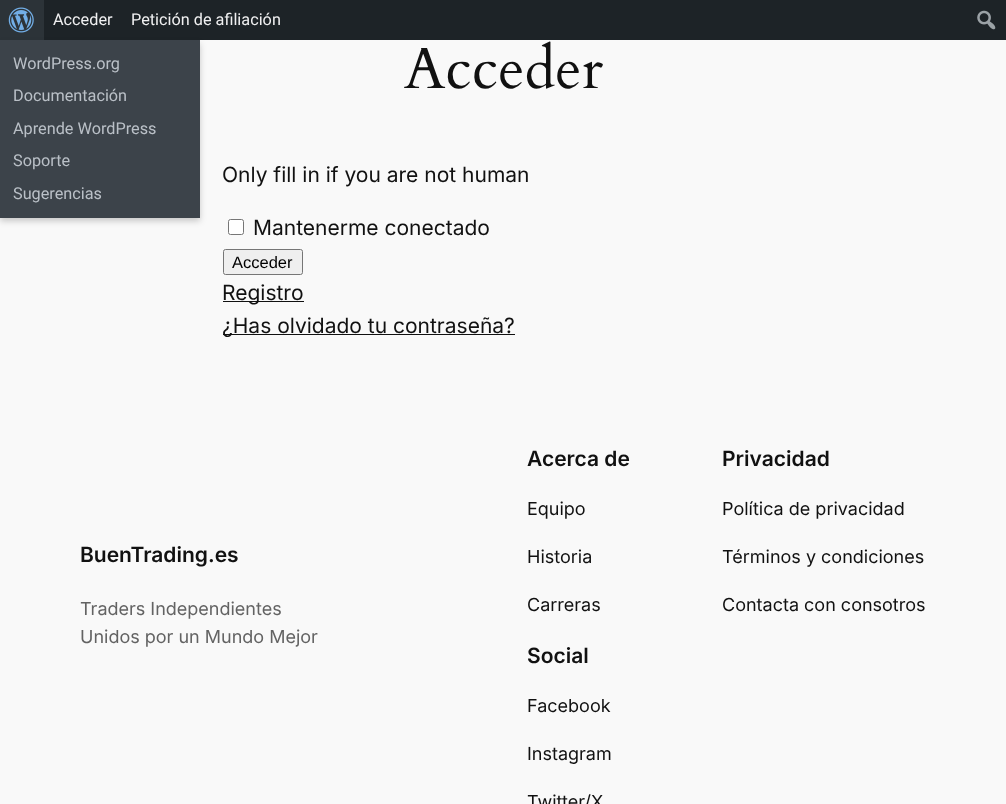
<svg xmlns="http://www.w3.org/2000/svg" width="1006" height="804">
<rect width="100%" height="100%" fill="#f9f9f9"/>
<rect x="44" width="962" height="40" fill="#1d2327"/>
<text x="53" y="25" style="font-family:Roboto;font-size:16.25px;fill:#f0f0f1">Acceder</text>
<text x="131" y="25" style="font-family:Roboto;font-size:16.25px;fill:#f0f0f1">Petición de afiliación</text>
<rect width="44" height="40" fill="#2c3338"/>
<image x="8" y="7" width="26" height="26" href="media/1.png"/>
<rect y="44" width="200" height="177" fill="#00000033" filter="blur(3px)"/>
<rect y="40" width="200" height="178" fill="#3c434a"/>
<text x="13" y="69" style="font-family:Roboto;font-size:16.25px;fill:#bac0c7">WordPress.org</text>
<text x="13" y="101" style="font-family:Roboto;font-size:16.25px;fill:#bac0c7">Documentación</text>
<text x="13" y="134" style="font-family:Roboto;font-size:16.25px;fill:#bac0c7">Aprende WordPress</text>
<text x="13" y="166" style="font-family:Roboto;font-size:16.25px;fill:#bac0c7">Soporte</text>
<text x="13" y="199" style="font-family:Roboto;font-size:16.25px;fill:#bac0c7">Sugerencias</text>
<image x="977" y="10" width="19" height="20" href="media/2.png"/>
<text x="404" y="88" style="font-family:Cardo;font-size:58px;fill:#111">Acceder</text>
<text x="222" y="182" style="font-family:Inter;font-size:21px;fill:#111">Only fill in if you are not human</text>
<rect x="228.5" y="219.5" width="15" height="15" rx="2" fill="#fff" stroke="#767676"/>
<text x="253" y="235" style="font-family:Inter;font-size:21px;fill:#111">Mantenerme conectado</text>
<rect x="223.5" y="249.5" width="79" height="25" rx="2" fill="#efefef" stroke="#767676"/>
<text x="232" y="268" style="font-family:Liberation Sans;font-size:16.5px;fill:#000">Acceder</text>
<rect x="223" y="301" width="81" height="1" fill="#111"/>
<text x="222" y="300" style="font-family:Inter;font-size:21px;fill:#111">Registro</text>
<rect x="223" y="334" width="292" height="1" fill="#111"/>
<text x="222" y="333" style="font-family:Inter;font-size:21px;fill:#111">¿Has olvidado tu contraseña?</text>
<text x="80" y="562" style="font-family:Inter;font-size:21px;font-weight:600;fill:#111">BuenTrading.es</text>
<text x="80" y="615" style="font-family:Inter;font-size:18px;fill:#636363">Traders Independientes</text>
<text x="80" y="643" style="font-family:Inter;font-size:18px;fill:#636363">Unidos por un Mundo Mejor</text>
<text x="527" y="466" style="font-family:Inter;font-size:21px;font-weight:600;fill:#111">Acerca de</text>
<text x="527" y="515" style="font-family:Inter;font-size:18px;fill:#111">Equipo</text>
<text x="527" y="563" style="font-family:Inter;font-size:18px;fill:#111">Historia</text>
<text x="527" y="611" style="font-family:Inter;font-size:18px;fill:#111">Carreras</text>
<text x="722" y="466" style="font-family:Inter;font-size:21px;font-weight:600;fill:#111">Privacidad</text>
<text x="722" y="515" style="font-family:Inter;font-size:18px;fill:#111">Política de privacidad</text>
<text x="722" y="563" style="font-family:Inter;font-size:18px;fill:#111">Términos y condiciones</text>
<text x="722" y="611" style="font-family:Inter;font-size:18px;fill:#111">Contacta con consotros</text>
<text x="527" y="663" style="font-family:Inter;font-size:21px;font-weight:600;fill:#111">Social</text>
<text x="527" y="712" style="font-family:Inter;font-size:18px;fill:#111">Facebook</text>
<text x="527" y="760" style="font-family:Inter;font-size:18px;fill:#111">Instagram</text>
<text x="527" y="808" style="font-family:Inter;font-size:18px;fill:#111">Twitter/X</text>
</svg>
